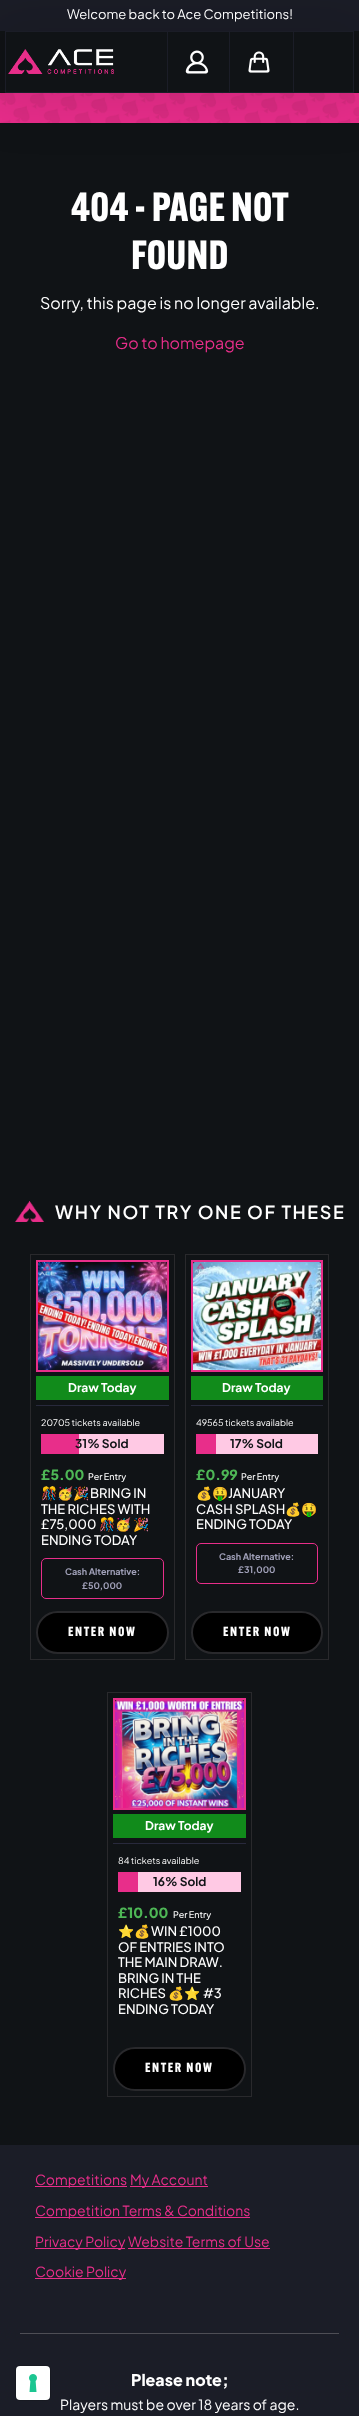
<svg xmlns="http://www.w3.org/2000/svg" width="359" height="2416">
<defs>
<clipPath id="clip1"><path d="M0 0h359v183h-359zm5 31h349v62h-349z" clip-rule="evenodd"/></clipPath>
</defs>
<rect width="100%" height="100%" fill="#101316"/>
<rect width="359" height="31" fill="#1b1d27"/>
<image x="0" y="93" width="359" height="30" href="media/4.png"/>
<g clip-path="url(#clip1)">
<rect x="-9" y="17" width="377" height="90" fill="#0000001a" filter="blur(25px)"/>
</g>
<rect x="5.5" y="31.5" width="348" height="61" fill="none" stroke="#1b1d27"/>
<image x="8" y="49" width="106" height="25" href="media/1.png"/>
<rect x="167" y="32" width="1" height="60" fill="#1b1d27"/>
<image x="185" y="50" width="24" height="24" href="media/2.png"/>
<rect x="229" y="32" width="1" height="60" fill="#1b1d27"/>
<image x="248" y="51" width="22" height="22" href="media/3.png"/>
<rect x="293" y="32" width="1" height="60" fill="#1b1d27"/>
<text x="67" y="19" style="font-family:Plus Jakarta Sans;font-size:13px;fill:#fff">Welcome back to Ace Competitions!</text>
<text x="71" y="221" style="font-family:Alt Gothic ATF;font-size:40px;font-weight:bold;fill:#fff">404 - PAGE NOT</text>
<text x="131" y="269" style="font-family:Alt Gothic ATF;font-size:40px;font-weight:bold;fill:#fff">FOUND</text>
<text x="40" y="309" style="font-family:Plus Jakarta Sans;font-size:16px;fill:#fff">Sorry, this page is no longer available.</text>
<text x="115" y="349" style="font-family:Plus Jakarta Sans;font-size:16px;fill:#e82e8a">Go to homepage</text>
<image x="15" y="1201" width="29" height="21" href="media/5.png"/>
<text x="55" y="1219" style="font-family:Plus Jakarta Sans;font-size:18px;font-weight:600;letter-spacing:1.6px;fill:#fff">WHY NOT TRY ONE OF THESE</text>
<rect x="30.5" y="1254.5" width="144" height="405" fill="none" stroke="#29292c"/>
<rect x="37" y="1261" width="131" height="110" fill="none" stroke="#e82e8a" stroke-width="2"/>
<image x="38" y="1262" width="129" height="108" href="media/6.png"/>
<rect x="36" y="1376" width="133" height="24" fill="#118b1b"/>
<text x="68" y="1392" style="font-family:Plus Jakarta Sans;font-size:12px;font-weight:bold;fill:#fff">Draw Today</text>
<rect x="36" y="1405" width="133" height="1" fill="#28293c"/>
<text x="41" y="1426" style="font-family:Plus Jakarta Sans;font-size:9px;fill:#fff">20705 tickets available</text>
<rect x="79" y="1434" width="85" height="20" fill="#ffc9e4"/>
<rect x="41" y="1434" width="38" height="20" fill="#e82e8a"/>
<text x="75" y="1448" style="font-family:Plus Jakarta Sans;font-size:12px;font-weight:bold;fill:#101316">31% Sold</text>
<text x="41" y="1480" style="font-family:Plus Jakarta Sans;font-size:14px;font-weight:800;fill:#4eb756">£5.00</text>
<text x="88" y="1480" style="font-family:Plus Jakarta Sans;font-size:9px;font-weight:500;fill:#fff">Per Entry</text>
<text x="41" y="1498" style="font-family:Noto Color Emoji;font-size:13px;fill:#fff">🎊🥳🎉</text>
<text x="90" y="1498" style="font-family:Plus Jakarta Sans;font-size:13px;font-weight:500;fill:#fff">BRING IN</text>
<text x="41" y="1514" style="font-family:Plus Jakarta Sans;font-size:13px;font-weight:500;fill:#fff">THE RICHES WITH</text>
<text x="41" y="1529" style="font-family:Plus Jakarta Sans;font-size:13px;font-weight:500;fill:#fff">£75,000</text>
<text x="99" y="1529" style="font-family:Noto Color Emoji;font-size:13px;fill:#fff">🎊🥳</text>
<text x="133" y="1529" style="font-family:Noto Color Emoji;font-size:13px;fill:#fff">🎉</text>
<text x="41" y="1545" style="font-family:Plus Jakarta Sans;font-size:13px;font-weight:500;fill:#fff">ENDING TODAY</text>
<rect x="41.5" y="1558.5" width="122" height="40" rx="4.5" fill="none" stroke="#e82e8a"/>
<text x="65" y="1575" style="font-family:Plus Jakarta Sans;font-size:9px;font-weight:bold;fill:#a1a1b9">Cash Alternative:</text>
<text x="82" y="1589" style="font-family:Plus Jakarta Sans;font-size:9px;font-weight:bold;fill:#a1a1b9">£50,000</text>
<rect x="37" y="1612" width="131" height="41" rx="20.5" fill="#000" stroke="#29292c" stroke-width="2"/>
<text x="68" y="1636" style="font-family:Alt Gothic ATF;font-size:13px;font-weight:bold;letter-spacing:1.6px;fill:#fff">ENTER NOW</text>
<rect x="185.5" y="1254.5" width="143" height="405" fill="none" stroke="#29292c"/>
<rect x="192" y="1261" width="130" height="110" fill="none" stroke="#e82e8a" stroke-width="2"/>
<image x="193" y="1262" width="128" height="108" href="media/7.png"/>
<rect x="191" y="1376" width="132" height="24" fill="#118b1b"/>
<text x="222" y="1392" style="font-family:Plus Jakarta Sans;font-size:12px;font-weight:bold;fill:#fff">Draw Today</text>
<rect x="191" y="1405" width="132" height="1" fill="#28293c"/>
<text x="196" y="1426" style="font-family:Plus Jakarta Sans;font-size:9px;fill:#fff">49565 tickets available</text>
<rect x="216" y="1434" width="102" height="20" fill="#ffc9e4"/>
<rect x="196" y="1434" width="20" height="20" fill="#e82e8a"/>
<text x="230" y="1448" style="font-family:Plus Jakarta Sans;font-size:12px;font-weight:bold;fill:#101316">17% Sold</text>
<text x="196" y="1480" style="font-family:Plus Jakarta Sans;font-size:14px;font-weight:800;fill:#4eb756">£0.99</text>
<text x="241" y="1480" style="font-family:Plus Jakarta Sans;font-size:9px;font-weight:500;fill:#fff">Per Entry</text>
<text x="196" y="1498" style="font-family:Noto Color Emoji;font-size:13px;fill:#fff">💰🤑</text>
<text x="228" y="1498" style="font-family:Plus Jakarta Sans;font-size:13px;font-weight:500;fill:#fff">JANUARY</text>
<text x="196" y="1514" style="font-family:Plus Jakarta Sans;font-size:13px;font-weight:500;fill:#fff">CASH SPLASH</text>
<text x="285" y="1514" style="font-family:Noto Color Emoji;font-size:13px;fill:#fff">💰🤑</text>
<text x="196" y="1529" style="font-family:Plus Jakarta Sans;font-size:13px;font-weight:500;fill:#fff">ENDING TODAY</text>
<rect x="196.5" y="1543.5" width="121" height="40" rx="4.5" fill="none" stroke="#e82e8a"/>
<text x="219" y="1560" style="font-family:Plus Jakarta Sans;font-size:9px;font-weight:bold;fill:#a1a1b9">Cash Alternative:</text>
<text x="238" y="1573" style="font-family:Plus Jakarta Sans;font-size:9px;font-weight:bold;fill:#a1a1b9">£31,000</text>
<rect x="192" y="1612" width="130" height="41" rx="20.5" fill="#000" stroke="#29292c" stroke-width="2"/>
<text x="223" y="1636" style="font-family:Alt Gothic ATF;font-size:13px;font-weight:bold;letter-spacing:1.6px;fill:#fff">ENTER NOW</text>
<rect x="107.5" y="1692.5" width="144" height="404" fill="none" stroke="#29292c"/>
<rect x="114" y="1699" width="131" height="110" fill="none" stroke="#e82e8a" stroke-width="2"/>
<image x="115" y="1700" width="129" height="108" href="media/8.png"/>
<rect x="113" y="1814" width="133" height="24" fill="#118b1b"/>
<text x="145" y="1830" style="font-family:Plus Jakarta Sans;font-size:12px;font-weight:bold;fill:#fff">Draw Today</text>
<rect x="113" y="1843" width="133" height="1" fill="#28293c"/>
<text x="118" y="1864" style="font-family:Plus Jakarta Sans;font-size:9px;fill:#fff">84 tickets available</text>
<rect x="138" y="1872" width="103" height="20" fill="#ffc9e4"/>
<rect x="118" y="1872" width="20" height="20" fill="#e82e8a"/>
<text x="153" y="1886" style="font-family:Plus Jakarta Sans;font-size:12px;font-weight:bold;fill:#101316">16% Sold</text>
<text x="118" y="1918" style="font-family:Plus Jakarta Sans;font-size:14px;font-weight:800;fill:#4eb756">£10.00</text>
<text x="173" y="1918" style="font-family:Plus Jakarta Sans;font-size:9px;font-weight:500;fill:#fff">Per Entry</text>
<text x="118" y="1936" style="font-family:Noto Color Emoji;font-size:13px;fill:#fff">⭐️💰</text>
<text x="151" y="1936" style="font-family:Plus Jakarta Sans;font-size:13px;font-weight:500;fill:#fff">WIN £1000</text>
<text x="118" y="1952" style="font-family:Plus Jakarta Sans;font-size:13px;font-weight:500;fill:#fff">OF ENTRIES INTO</text>
<text x="118" y="1967" style="font-family:Plus Jakarta Sans;font-size:13px;font-weight:500;fill:#fff">THE MAIN DRAW.</text>
<text x="118" y="1983" style="font-family:Plus Jakarta Sans;font-size:13px;font-weight:500;fill:#fff">BRING IN THE</text>
<text x="118" y="1998" style="font-family:Plus Jakarta Sans;font-size:13px;font-weight:500;fill:#fff">RICHES</text>
<text x="168" y="1998" style="font-family:Noto Color Emoji;font-size:13px;fill:#fff">💰⭐️</text>
<text x="203" y="1998" style="font-family:Plus Jakarta Sans;font-size:13px;font-weight:500;fill:#fff">#3</text>
<text x="118" y="2014" style="font-family:Plus Jakarta Sans;font-size:13px;font-weight:500;fill:#fff">ENDING TODAY</text>
<rect x="114" y="2048" width="131" height="42" rx="21" fill="#000" stroke="#29292c" stroke-width="2"/>
<text x="145" y="2072" style="font-family:Alt Gothic ATF;font-size:13px;font-weight:bold;letter-spacing:1.6px;fill:#fff">ENTER NOW</text>
<rect y="2145" width="359" height="271" fill="#1b1d27"/>
<rect x="15.5" y="2365.5" width="35" height="35" rx="4.5" fill="none" stroke="#171921"/>
<rect x="16" y="2366" width="34" height="34" rx="4" fill="#fff"/>
<image x="29" y="2374" width="8" height="18" href="media/9.png"/>
<rect x="20" y="2333" width="319" height="1" fill="#4e4e55"/>
<rect x="35" y="2186" width="92" height="1" fill="#e82e8a"/>
<text x="35" y="2185" style="font-family:Plus Jakarta Sans;font-size:14px;fill:#e82e8a">Competitions</text>
<rect x="130" y="2186" width="78" height="1" fill="#e82e8a"/>
<text x="130" y="2185" style="font-family:Plus Jakarta Sans;font-size:14px;fill:#e82e8a">My Account</text>
<rect x="35" y="2217" width="215" height="1" fill="#e82e8a"/>
<text x="35" y="2216" style="font-family:Plus Jakarta Sans;font-size:14px;fill:#e82e8a">Competition Terms &amp; Conditions</text>
<rect x="35" y="2248" width="90" height="1" fill="#e82e8a"/>
<text x="35" y="2247" style="font-family:Plus Jakarta Sans;font-size:14px;fill:#e82e8a">Privacy Policy</text>
<text x="128" y="2247" style="font-family:Plus Jakarta Sans;font-size:14px;fill:#e82e8a">Website Terms of Use</text>
<rect x="128" y="2248" width="142" height="1" fill="#e82e8a"/>
<rect x="35" y="2278" width="91" height="1" fill="#e82e8a"/>
<text x="35" y="2277" style="font-family:Plus Jakarta Sans;font-size:14px;fill:#e82e8a">Cookie Policy</text>
<text x="131" y="2386" style="font-family:Plus Jakarta Sans;font-size:16px;font-weight:800;fill:#fff">Please note;</text>
<text x="60" y="2410" style="font-family:Plus Jakarta Sans;font-size:14px;fill:#fff">Players must be over 18 years of age.</text>
</svg>
